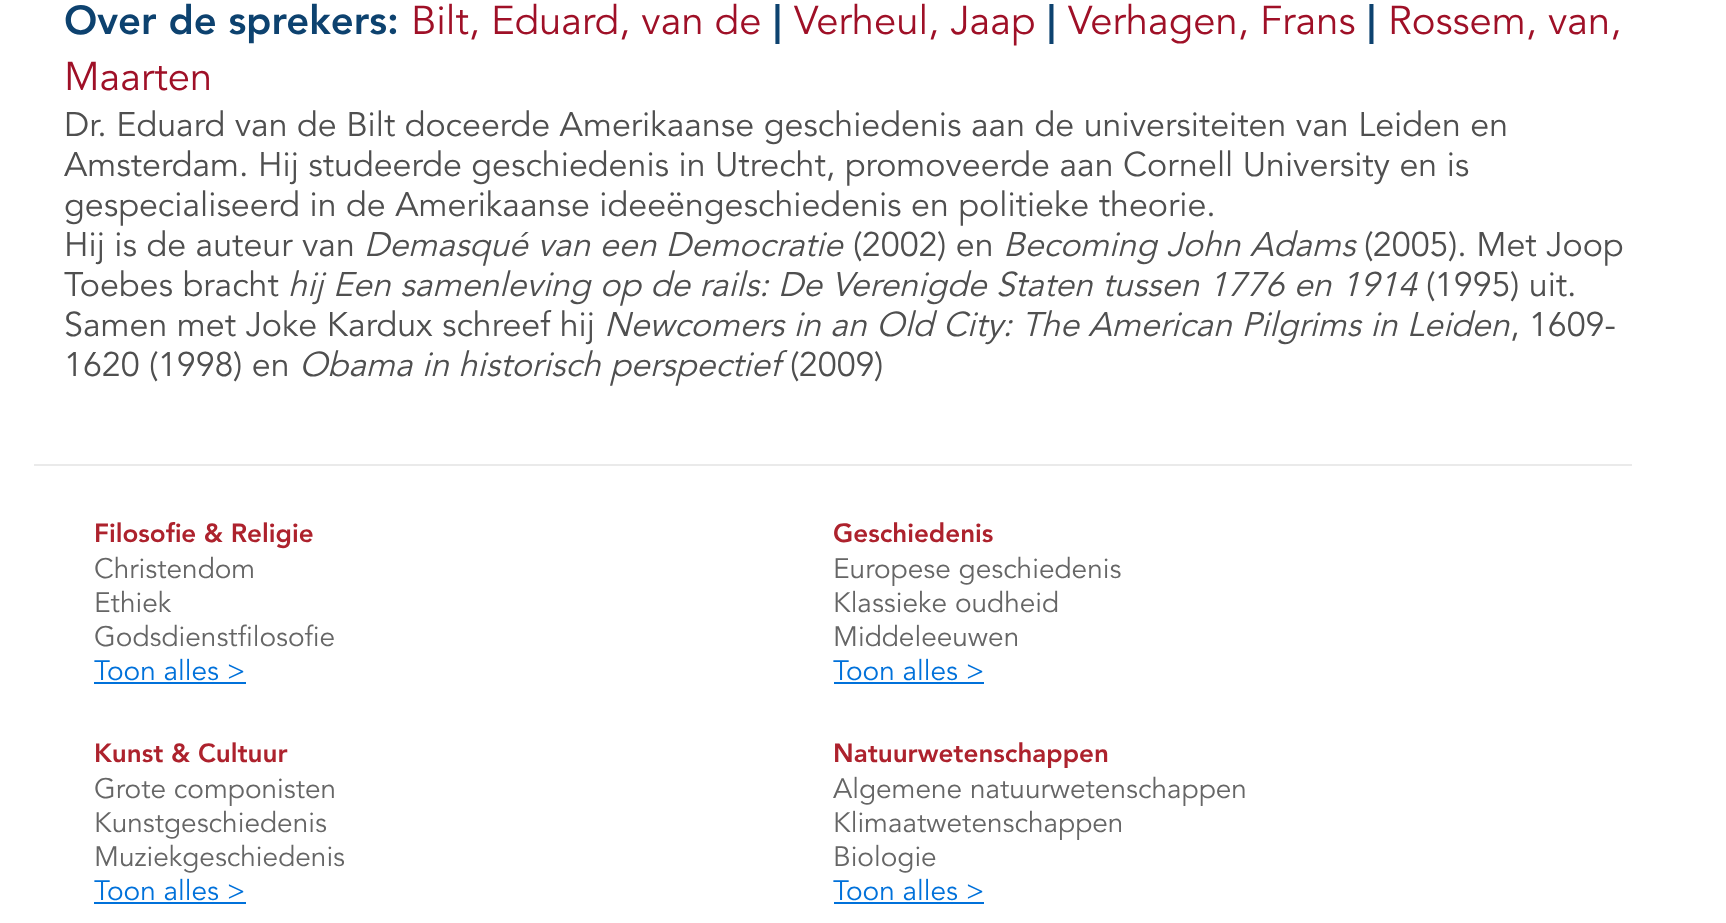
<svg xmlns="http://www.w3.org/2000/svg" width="1726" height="923">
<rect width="100%" height="100%" fill="#fff"/>
<text x="64" y="34" style="font-family:Avenir;font-size:40px;font-weight:900;fill:#0d426f">Over de sprekers:</text>
<text x="411" y="34" style="font-family:Avenir;font-size:40px;fill:#9f1027">Bilt, Eduard, van de</text>
<text x="773" y="34" style="font-family:Avenir;font-size:40px;font-weight:900;fill:#0d426f">|</text>
<text x="794" y="34" style="font-family:Avenir;font-size:40px;fill:#9f1027">Verheul, Jaap</text>
<text x="1047" y="34" style="font-family:Avenir;font-size:40px;font-weight:900;fill:#0d426f">|</text>
<text x="1068" y="34" style="font-family:Avenir;font-size:40px;fill:#9f1027">Verhagen, Frans</text>
<text x="1367" y="34" style="font-family:Avenir;font-size:40px;font-weight:900;fill:#0d426f">|</text>
<text x="1388" y="34" style="font-family:Avenir;font-size:40px;fill:#9f1027">Rossem, van,</text>
<text x="64" y="90" style="font-family:Avenir;font-size:40px;fill:#9f1027">Maarten</text>
<text x="64" y="136" style="font-family:Avenir;font-size:34px;fill:#4f4f4f">Dr. Eduard van de Bilt doceerde Amerikaanse geschiedenis aan de universiteiten van Leiden en</text>
<text x="64" y="176" style="font-family:Avenir;font-size:34px;fill:#4f4f4f">Amsterdam. Hij studeerde geschiedenis in Utrecht, promoveerde aan Cornell University en is</text>
<text x="64" y="216" style="font-family:Avenir;font-size:34px;fill:#4f4f4f">gespecialiseerd in de Amerikaanse ideeëngeschiedenis en politieke theorie.</text>
<text x="64" y="256" style="font-family:Avenir;font-size:34px;fill:#4f4f4f">Hij is de auteur van</text>
<text x="364" y="256" style="font-family:Avenir;font-size:34px;font-style:italic;fill:#4f4f4f">Demasqué van een Democratie</text>
<text x="853" y="256" style="font-family:Avenir;font-size:34px;fill:#4f4f4f">(2002) en</text>
<text x="1003" y="256" style="font-family:Avenir;font-size:34px;font-style:italic;fill:#4f4f4f">Becoming John Adams</text>
<text x="1364" y="256" style="font-family:Avenir;font-size:34px;fill:#4f4f4f">(2005). Met Joop</text>
<text x="64" y="296" style="font-family:Avenir;font-size:34px;fill:#4f4f4f">Toebes bracht</text>
<text x="288" y="296" style="font-family:Avenir;font-size:34px;font-style:italic;fill:#4f4f4f">hij Een samenleving op de rails: De Verenigde Staten tussen 1776 en 1914</text>
<text x="1426" y="296" style="font-family:Avenir;font-size:34px;fill:#4f4f4f">(1995) uit.</text>
<text x="64" y="336" style="font-family:Avenir;font-size:34px;fill:#4f4f4f">Samen met Joke Kardux schreef hij</text>
<text x="604" y="336" style="font-family:Avenir;font-size:34px;font-style:italic;fill:#4f4f4f">Newcomers in an Old City: The American Pilgrims in Leiden</text>
<text x="1510" y="336" style="font-family:Avenir;font-size:34px;fill:#4f4f4f">, 1609-</text>
<text x="64" y="376" style="font-family:Avenir;font-size:34px;fill:#4f4f4f">1620 (1998) en</text>
<text x="299" y="376" style="font-family:Avenir;font-size:34px;font-style:italic;fill:#4f4f4f">Obama in historisch perspectief</text>
<text x="790" y="376" style="font-family:Avenir;font-size:34px;fill:#4f4f4f">(2009)</text>
<rect x="34" y="464" width="1598" height="2" fill="#eaeaea"/>
<text x="94" y="542" style="font-family:Avenir;font-size:26px;font-weight:900;fill:#ad222d">Filosofie &amp; Religie</text>
<text x="94" y="578" style="font-family:Avenir;font-size:28px;fill:#666">Christendom</text>
<text x="94" y="612" style="font-family:Avenir;font-size:28px;fill:#666">Ethiek</text>
<text x="94" y="646" style="font-family:Avenir;font-size:28px;fill:#666">Godsdienstfilosofie</text>
<text x="94" y="680" style="font-family:Avenir;font-size:28px;fill:#0071da">Toon alles &gt;</text>
<rect x="94" y="682" width="152" height="2" fill="#0071da"/>
<text x="833" y="542" style="font-family:Avenir;font-size:26px;font-weight:900;fill:#ad222d">Geschiedenis</text>
<text x="833" y="578" style="font-family:Avenir;font-size:28px;fill:#666">Europese geschiedenis</text>
<text x="833" y="612" style="font-family:Avenir;font-size:28px;fill:#666">Klassieke oudheid</text>
<text x="833" y="646" style="font-family:Avenir;font-size:28px;fill:#666">Middeleeuwen</text>
<text x="833" y="680" style="font-family:Avenir;font-size:28px;fill:#0071da">Toon alles &gt;</text>
<rect x="834" y="682" width="150" height="2" fill="#0071da"/>
<text x="94" y="762" style="font-family:Avenir;font-size:26px;font-weight:900;fill:#ad222d">Kunst &amp; Cultuur</text>
<text x="94" y="798" style="font-family:Avenir;font-size:28px;fill:#666">Grote componisten</text>
<text x="94" y="832" style="font-family:Avenir;font-size:28px;fill:#666">Kunstgeschiedenis</text>
<text x="94" y="866" style="font-family:Avenir;font-size:28px;fill:#666">Muziekgeschiedenis</text>
<text x="94" y="900" style="font-family:Avenir;font-size:28px;fill:#0071da">Toon alles &gt;</text>
<rect x="94" y="902" width="152" height="2" fill="#0071da"/>
<text x="833" y="762" style="font-family:Avenir;font-size:26px;font-weight:900;fill:#ad222d">Natuurwetenschappen</text>
<text x="833" y="798" style="font-family:Avenir;font-size:28px;fill:#666">Algemene natuurwetenschappen</text>
<text x="833" y="832" style="font-family:Avenir;font-size:28px;fill:#666">Klimaatwetenschappen</text>
<text x="833" y="866" style="font-family:Avenir;font-size:28px;fill:#666">Biologie</text>
<text x="833" y="900" style="font-family:Avenir;font-size:28px;fill:#0071da">Toon alles &gt;</text>
<rect x="834" y="902" width="150" height="2" fill="#0071da"/>
</svg>
